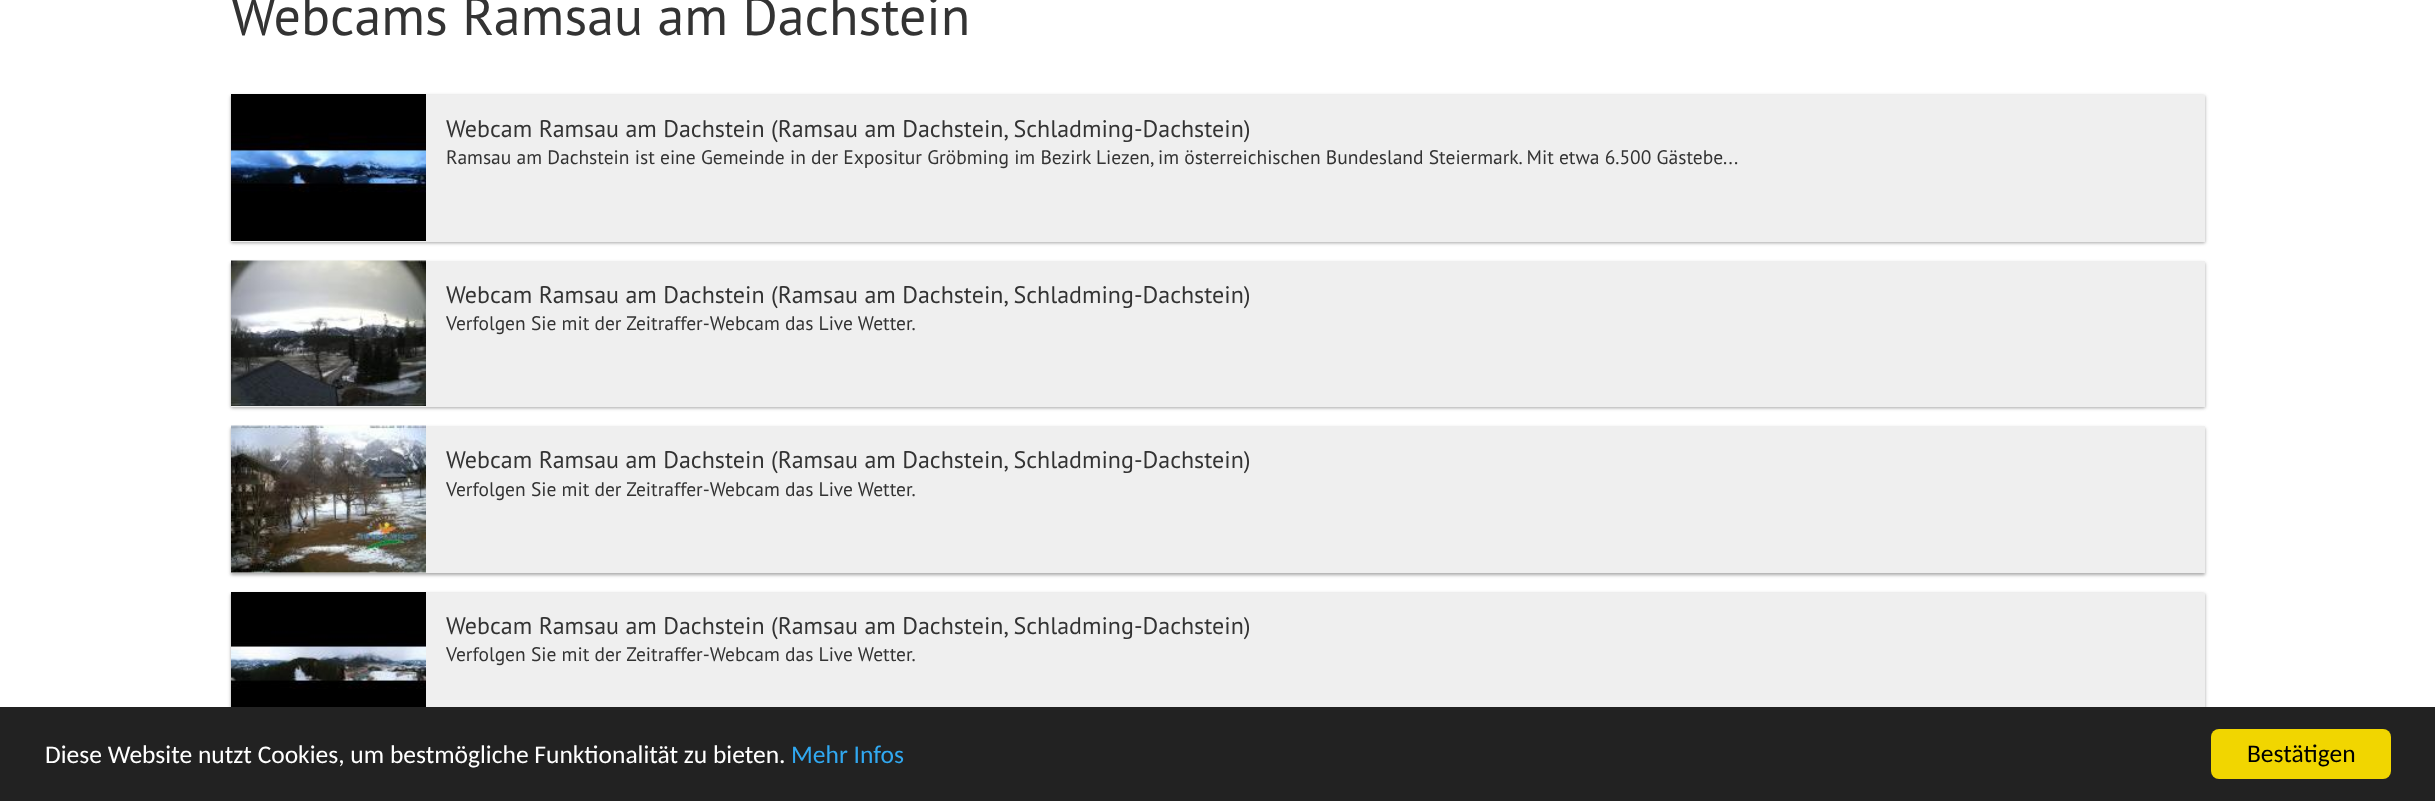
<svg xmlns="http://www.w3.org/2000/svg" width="2435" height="801">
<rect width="100%" height="100%" fill="#fff"/>
<text x="231" y="35" style="font-family:PT Sans;font-size:54px;fill:#333">Webcams Ramsau am Dachstein</text>
<rect x="231" y="96" width="1974" height="147" fill="#0000003d" filter="blur(1.5px)"/>
<rect x="231" y="96" width="1974" height="147" fill="#0000001f" filter="blur(2px)"/>
<rect x="231" y="95" width="1974" height="147" fill="#efefef"/>
<image x="231" y="94" width="195" height="147" href="media/1.png"/>
<text x="446" y="137" style="font-family:PT Sans;font-size:24px;fill:#333">Webcam Ramsau am Dachstein (Ramsau am Dachstein, Schladming-Dachstein)</text>
<text x="446" y="164" style="font-family:PT Sans;font-size:19.5px;fill:#333">Ramsau am Dachstein ist eine Gemeinde in der Expositur Gröbming im Bezirk Liezen, im österreichischen Bundesland Steiermark. Mit etwa 6.500 Gästebe...</text>
<rect x="231" y="263" width="1974" height="145" fill="#0000003d" filter="blur(1.5px)"/>
<rect x="231" y="263" width="1974" height="145" fill="#0000001f" filter="blur(2px)"/>
<rect x="231" y="261" width="1974" height="146" fill="#efefef"/>
<image x="231" y="260" width="195" height="146" href="media/2.png"/>
<text x="446" y="303" style="font-family:PT Sans;font-size:24px;fill:#333">Webcam Ramsau am Dachstein (Ramsau am Dachstein, Schladming-Dachstein)</text>
<text x="446" y="330" style="font-family:PT Sans;font-size:19.5px;fill:#333">Verfolgen Sie mit der Zeitraffer-Webcam das Live Wetter.</text>
<rect x="231" y="428" width="1974" height="147" fill="#0000003d" filter="blur(1.5px)"/>
<rect x="231" y="428" width="1974" height="147" fill="#0000001f" filter="blur(2px)"/>
<rect x="231" y="426" width="1974" height="147" fill="#efefef"/>
<image x="231" y="425" width="195" height="148" href="media/3.png"/>
<text x="446" y="468" style="font-family:PT Sans;font-size:24px;fill:#333">Webcam Ramsau am Dachstein (Ramsau am Dachstein, Schladming-Dachstein)</text>
<text x="446" y="496" style="font-family:PT Sans;font-size:19.5px;fill:#333">Verfolgen Sie mit der Zeitraffer-Webcam das Live Wetter.</text>
<rect x="231" y="594" width="1974" height="146" fill="#0000003d" filter="blur(1.5px)"/>
<rect x="231" y="594" width="1974" height="146" fill="#0000001f" filter="blur(2px)"/>
<rect x="426" y="593" width="1779" height="114" fill="#efefef"/>
<image x="231" y="592" width="195" height="115" href="media/4.png"/>
<text x="446" y="634" style="font-family:PT Sans;font-size:24px;fill:#333">Webcam Ramsau am Dachstein (Ramsau am Dachstein, Schladming-Dachstein)</text>
<text x="446" y="661" style="font-family:PT Sans;font-size:19.5px;fill:#333">Verfolgen Sie mit der Zeitraffer-Webcam das Live Wetter.</text>
<rect y="707" width="2435" height="94" fill="#222"/>
<text x="45" y="763" style="font-family:Carlito;font-size:25.5px;fill:#fff">Diese Website nutzt Cookies, um bestmögliche Funktionalität zu bieten.</text>
<text x="791" y="763" style="font-family:Carlito;font-size:25.5px;fill:#31a8f0">Mehr Infos</text>
<rect x="2211" y="729" width="180" height="50" rx="8" fill="#f1d600"/>
<text x="2247" y="762" style="font-family:Carlito;font-size:25.5px;fill:#000">Bestätigen</text>
</svg>
